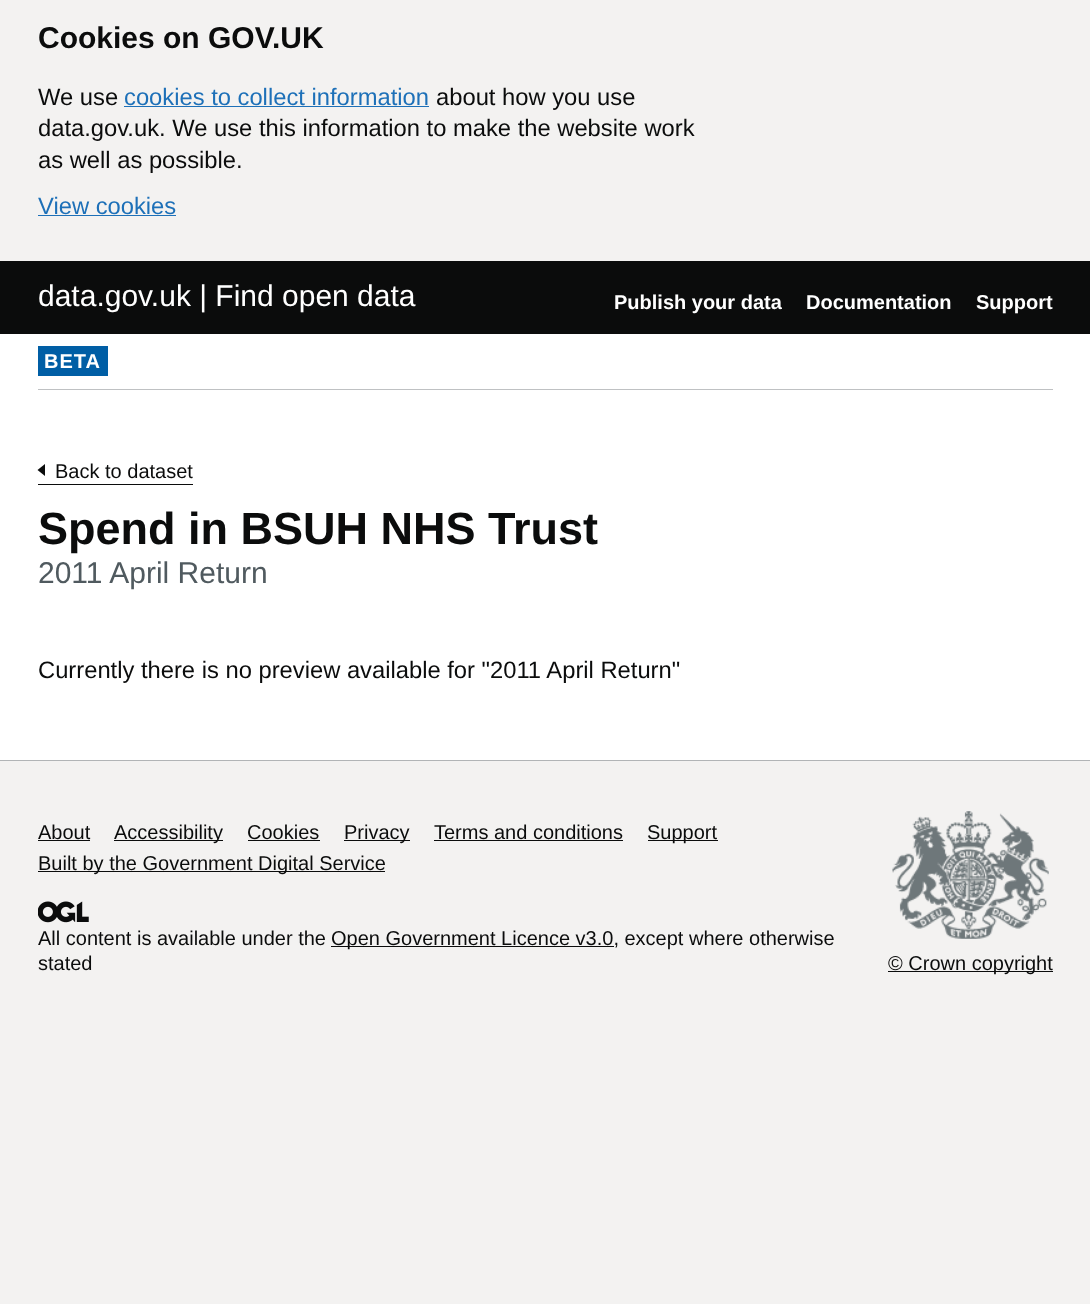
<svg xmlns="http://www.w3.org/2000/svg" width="1090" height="1304">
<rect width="100%" height="100%" fill="#f3f2f1"/>
<rect y="334" width="1090" height="426" fill="#fff"/>
<text x="38" y="48" style="font-family:Liberation Sans;font-size:30px;font-weight:bold;fill:#0b0c0c">Cookies on GOV.UK</text>
<text x="38" y="105" style="font-family:Liberation Sans;font-size:23.75px;fill:#0b0c0c">We use</text>
<text x="124" y="105" style="font-family:Liberation Sans;font-size:23.75px;fill:#1d70b8">cookies to collect information</text>
<rect x="124" y="106" width="305" height="1" fill="#1d70b8"/>
<text x="436" y="105" style="font-family:Liberation Sans;font-size:23.75px;fill:#0b0c0c">about how you use</text>
<text x="38" y="136" style="font-family:Liberation Sans;font-size:23.75px;fill:#0b0c0c">data.gov.uk. We use this information to make the website work</text>
<text x="38" y="168" style="font-family:Liberation Sans;font-size:23.75px;fill:#0b0c0c">as well as possible.</text>
<text x="38" y="214" style="font-family:Liberation Sans;font-size:23.75px;fill:#1d70b8">View cookies</text>
<rect x="38" y="215" width="138" height="1" fill="#1d70b8"/>
<rect y="261" width="1090" height="73" fill="#0b0c0c"/>
<text x="38" y="306" style="font-family:Liberation Sans;font-size:30px;fill:#fff">data.gov.uk | Find open data</text>
<text x="614" y="309" style="font-family:Liberation Sans;font-size:20px;font-weight:bold;fill:#fff">Publish your data</text>
<text x="806" y="309" style="font-family:Liberation Sans;font-size:20px;font-weight:bold;fill:#fff">Documentation</text>
<text x="976" y="309" style="font-family:Liberation Sans;font-size:20px;font-weight:bold;fill:#fff">Support</text>
<rect x="38" y="389" width="1015" height="1" fill="#bfc1c3"/>
<rect x="38" y="346" width="70" height="30" fill="#005ea5"/>
<text x="44" y="368" style="font-family:Liberation Sans;font-size:20px;font-weight:bold;letter-spacing:1px;fill:#fff">BETA</text>
<rect x="38" y="484" width="155" height="1" fill="#0b0c0c"/>
<path d="M45 464v12l-7.5-6z" fill="#0b0c0c"/>
<text x="55" y="478" style="font-family:Liberation Sans;font-size:20px;fill:#0b0c0c">Back to dataset</text>
<text x="38" y="544" style="font-family:Liberation Sans;font-size:45px;font-weight:bold;fill:#0b0c0c">Spend in BSUH NHS Trust</text>
<text x="38" y="583" style="font-family:Liberation Sans;font-size:30px;fill:#505a5f">2011 April Return</text>
<text x="38" y="678" style="font-family:Liberation Sans;font-size:23.75px;fill:#0b0c0c">Currently there is no preview available for "2011 April Return"</text>
<rect y="760" width="1090" height="1" fill="#b1b4b6"/>
<text x="38" y="839" style="font-family:Liberation Sans;font-size:20px;fill:#0b0c0c">About</text>
<rect x="38" y="840" width="52" height="1" fill="#0b0c0c"/>
<rect x="114" y="840" width="109" height="1" fill="#0b0c0c"/>
<text x="114" y="839" style="font-family:Liberation Sans;font-size:20px;fill:#0b0c0c">Accessibility</text>
<text x="247" y="839" style="font-family:Liberation Sans;font-size:20px;fill:#0b0c0c">Cookies</text>
<rect x="248" y="840" width="72" height="1" fill="#0b0c0c"/>
<rect x="344" y="840" width="66" height="1" fill="#0b0c0c"/>
<text x="344" y="839" style="font-family:Liberation Sans;font-size:20px;fill:#0b0c0c">Privacy</text>
<text x="434" y="839" style="font-family:Liberation Sans;font-size:20px;fill:#0b0c0c">Terms and conditions</text>
<rect x="434" y="840" width="189" height="1" fill="#0b0c0c"/>
<rect x="648" y="840" width="70" height="1" fill="#0b0c0c"/>
<text x="647" y="839" style="font-family:Liberation Sans;font-size:20px;fill:#0b0c0c">Support</text>
<rect x="38" y="871" width="347" height="1" fill="#0b0c0c"/>
<text x="38" y="870" style="font-family:Liberation Sans;font-size:20px;fill:#0b0c0c">Built by the Government Digital Service</text>
<image x="38" y="901" width="51" height="22" href="media/1.png"/>
<text x="38" y="945" style="font-family:Liberation Sans;font-size:20px;fill:#0b0c0c">All content is available under the</text>
<rect x="331" y="946" width="283" height="1" fill="#0b0c0c"/>
<text x="331" y="945" style="font-family:Liberation Sans;font-size:20px;fill:#0b0c0c">Open Government Licence v3.0, except where otherwise</text>
<text x="38" y="970" style="font-family:Liberation Sans;font-size:20px;fill:#0b0c0c">stated</text>
<image x="892" y="811" width="157" height="128" href="media/2.png"/>
<rect x="888" y="971" width="165" height="1" fill="#0b0c0c"/>
<text x="888" y="970" style="font-family:Liberation Sans;font-size:20px;fill:#0b0c0c">© Crown copyright</text>
</svg>
